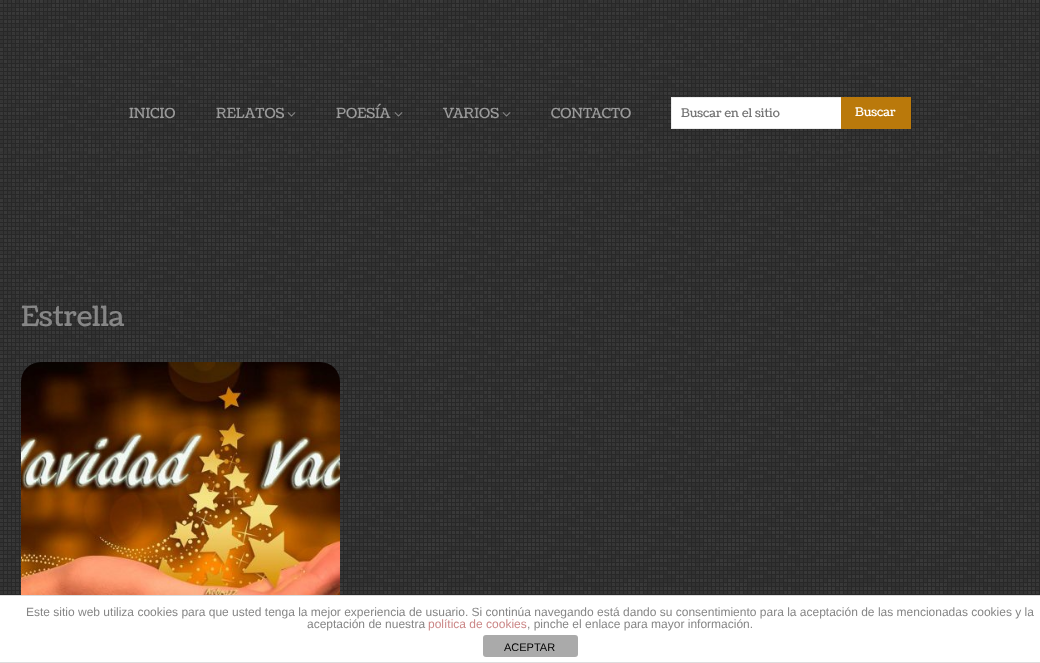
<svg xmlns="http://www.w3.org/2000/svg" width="1040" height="663">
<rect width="100%" height="100%" fill="#fff"/>
<image x="0" y="0" width="1040" height="151" href="media/1.png"/>
<text x="129" y="118" style="font-family:Coustard;font-size:14px;fill:#999">INICIO</text>
<text x="216" y="118" style="font-family:Coustard;font-size:14px;fill:#999">RELATOS</text>
<image x="287" y="112" width="9" height="5" href="media/2.png"/>
<text x="336" y="118" style="font-family:Coustard;font-size:14px;fill:#999">POESÍA</text>
<image x="394" y="112" width="9" height="5" href="media/3.png"/>
<text x="443" y="118" style="font-family:Coustard;font-size:14px;fill:#999">VARIOS</text>
<image x="502" y="112" width="9" height="5" href="media/4.png"/>
<text x="551" y="118" style="font-family:Coustard;font-size:14px;fill:#999">CONTACTO</text>
<rect x="671" y="97" width="170" height="32" fill="#fff"/>
<path d="M671 97h180v1h-179z" fill="#ebebeb"/>
<path d="M851 129h-180l1-1h179z" fill="#ebebeb"/>
<path d="M671 129v-32l1 1v30z" fill="#00000014"/>
<text x="681" y="117" style="font-family:Coustard;font-size:12px;fill:#757575">Buscar en el sitio</text>
<rect x="841" y="97" width="70" height="32" fill="#ba790b"/>
<text x="855" y="116" style="font-family:Coustard;font-size:12px;fill:#fff">Buscar</text>
<image x="0" y="151" width="1040" height="444" href="media/5.png"/>
<text x="21" y="326" style="font-family:Coustard;font-size:28px;fill:#868686">Estrella</text>
<image x="21" y="362" width="319" height="233" href="media/6.png"/>
<rect y="595" width="1040" height="1" fill="#ddd"/>
<rect y="662" width="1040" height="1" fill="#ddd"/>
<text x="26" y="616" style="font-family:Liberation Sans;font-size:12px;fill:#868686">Este sitio web utiliza cookies para que usted tenga la mejor experiencia de usuario. Si continúa navegando está dando su consentimiento para la aceptación de las mencionadas cookies y la</text>
<text x="307" y="628" style="font-family:Liberation Sans;font-size:12px;fill:#868686">aceptación de nuestra</text>
<text x="428" y="628" style="font-family:Liberation Sans;font-size:12px;fill:#c88">política de cookies</text>
<text x="527" y="628" style="font-family:Liberation Sans;font-size:12px;fill:#868686">, pinche el enlace para mayor información.</text>
<rect x="483" y="635" width="95" height="22" rx="3" fill="#aaa"/>
<text x="504" y="651" style="font-family:Liberation Sans;font-size:11px;fill:#000">ACEPTAR</text>
</svg>
